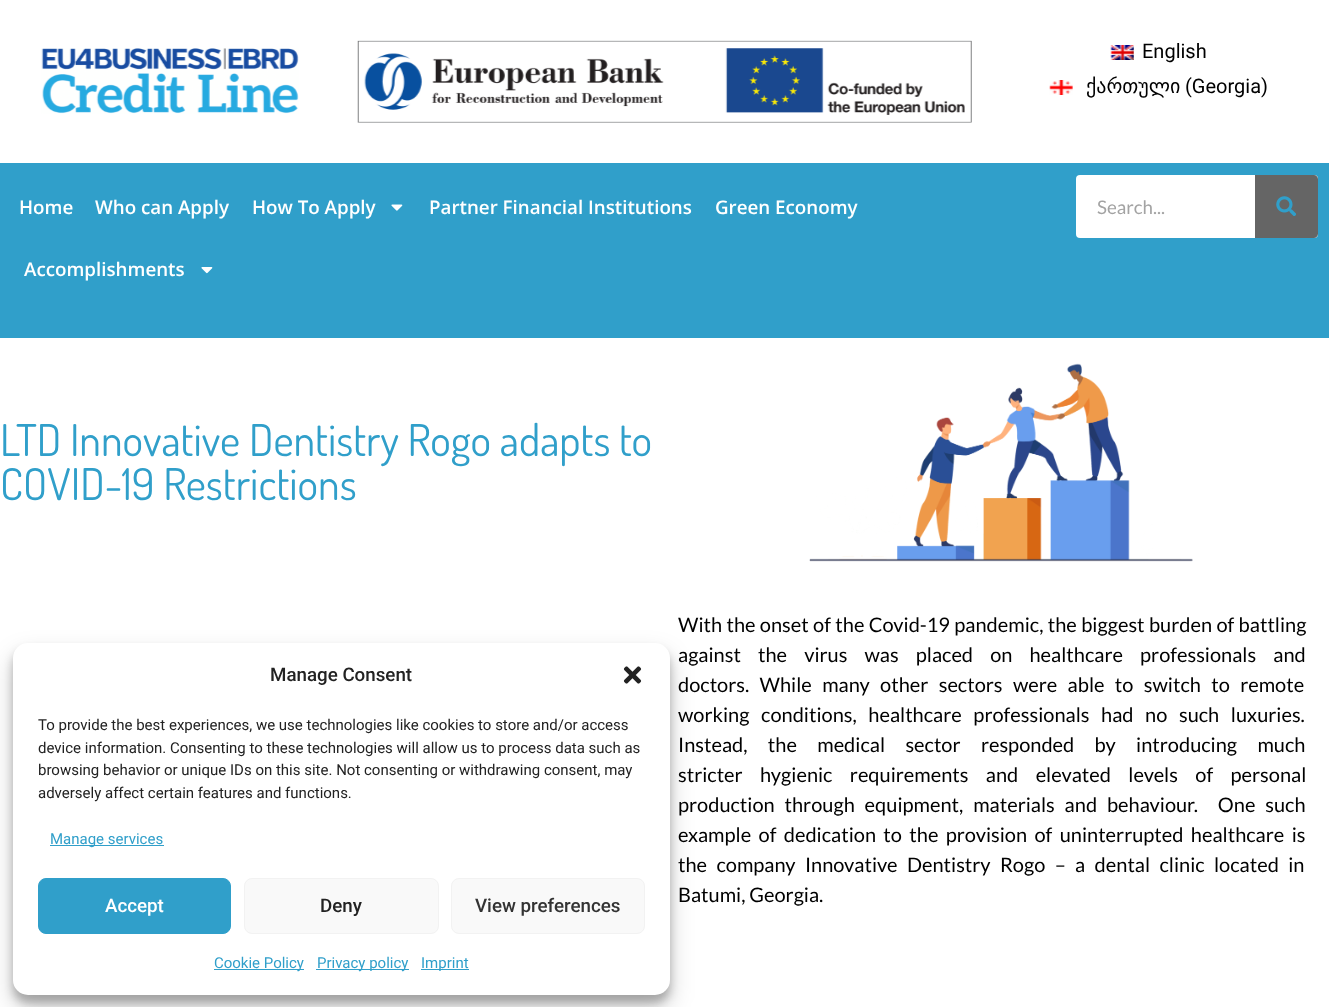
<svg xmlns="http://www.w3.org/2000/svg" width="1329" height="1007">
<rect width="100%" height="100%" fill="#fff"/>
<image x="41" y="48" width="258" height="66" href="media/1.png"/>
<image x="357" y="40" width="615" height="83" href="media/2.png"/>
<image x="1110" y="45" width="24" height="15" href="media/3.png"/>
<text x="1142" y="58" style="font-family:Roboto;font-size:20px;fill:#000">English</text>
<image x="1049" y="80" width="24" height="15" href="media/4.png"/>
<text x="1086" y="93" style="font-family:DejaVu Sans;font-size:20px;fill:#000">ქართული</text>
<text x="1185" y="93" style="font-family:Roboto;font-size:20px;fill:#000">(Georgia)</text>
<rect y="163" width="1329" height="175" fill="#309fca"/>
<text x="19" y="214" style="font-family:Open Sans;font-size:18.75px;font-weight:600;fill:#fff">Home</text>
<text x="95" y="214" style="font-family:Open Sans;font-size:18.75px;font-weight:600;fill:#fff">Who can Apply</text>
<text x="252" y="214" style="font-family:Open Sans;font-size:18.75px;font-weight:600;fill:#fff">How To Apply</text>
<image x="391" y="204" width="12" height="7" href="media/5.png"/>
<text x="429" y="214" style="font-family:Open Sans;font-size:18.75px;font-weight:600;fill:#fff">Partner Financial Institutions</text>
<text x="715" y="214" style="font-family:Open Sans;font-size:18.75px;font-weight:600;fill:#fff">Green Economy</text>
<text x="24" y="276" style="font-family:Open Sans;font-size:18.75px;font-weight:600;fill:#fff">Accomplishments</text>
<image x="201" y="267" width="12" height="7" href="media/6.png"/>
<rect x="1076" y="175" width="242" height="63" rx="4" fill="#fff"/>
<text x="1097" y="214" style="font-family:Lato;font-size:18.75px;fill:#a3a3a3">Search...</text>
<path d="M1255 175h59c2 0 4 2 4 4v55c0 2-2 4-4 4h-59z" fill="#656565"/>
<image x="1276" y="196" width="20" height="20" href="media/7.png"/>
<text x="0" y="456" style="font-family:Dosis;font-size:43.75px;fill:#309fca">LTD Innovative Dentistry Rogo adapts to</text>
<text x="0" y="500" style="font-family:Dosis;font-size:43.75px;fill:#309fca">COVID-19 Restrictions</text>
<image x="809" y="363" width="384" height="199" href="media/8.png"/>
<text x="678" y="632" word-spacing="0.5" style="font-family:Lato;font-size:20px;fill:#000">With the onset of the Covid-19 pandemic, the biggest burden of battling</text>
<text x="678" y="662" word-spacing="13.25" style="font-family:Lato;font-size:20px;fill:#000">against the virus was placed on healthcare professionals and</text>
<text x="678" y="692" word-spacing="6.5" style="font-family:Lato;font-size:20px;fill:#000">doctors. While many other sectors were able to switch to remote</text>
<text x="678" y="722" word-spacing="7.75" style="font-family:Lato;font-size:20px;fill:#000">working conditions, healthcare professionals had no such luxuries.</text>
<text x="678" y="752" word-spacing="16.5" style="font-family:Lato;font-size:20px;fill:#000">Instead, the medical sector responded by introducing much</text>
<text x="678" y="782" word-spacing="13.5" style="font-family:Lato;font-size:20px;fill:#000">stricter hygienic requirements and elevated levels of personal</text>
<text x="678" y="812" word-spacing="6" style="font-family:Lato;font-size:20px;fill:#000" xml:space="preserve">production through equipment, materials and behaviour.  One such</text>
<text x="678" y="842" word-spacing="3.5" style="font-family:Lato;font-size:20px;fill:#000">example of dedication to the provision of uninterrupted healthcare is</text>
<text x="678" y="872" word-spacing="5.5" style="font-family:Lato;font-size:20px;fill:#000">the company Innovative Dentistry Rogo – a dental clinic located in</text>
<text x="678" y="902" style="font-family:Lato;font-size:20px;fill:#000">Batumi, Georgia.</text>
<rect x="13" y="650" width="657" height="353" rx="15" fill="#0000003b" filter="blur(4px)"/>
<rect x="13" y="655" width="657" height="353" rx="15" fill="#00000030" filter="blur(12.5px)"/>
<rect x="13" y="643" width="657" height="352" rx="15" fill="#fff"/>
<text x="270" y="681" style="font-family:Roboto;font-size:18.75px;font-weight:500;fill:#222">Manage Consent</text>
<image x="623" y="666" width="19" height="18" href="media/9.png"/>
<text x="38" y="730" style="font-family:Roboto;font-size:15px;fill:#222">To provide the best experiences, we use technologies like cookies to store and/or access</text>
<text x="38" y="753" style="font-family:Roboto;font-size:15px;fill:#222">device information. Consenting to these technologies will allow us to process data such as</text>
<text x="38" y="775" style="font-family:Roboto;font-size:15px;fill:#222">browsing behavior or unique IDs on this site. Not consenting or withdrawing consent, may</text>
<text x="38" y="798" style="font-family:Roboto;font-size:15px;fill:#222">adversely affect certain features and functions.</text>
<rect x="50" y="845" width="114" height="1" fill="#309fca"/>
<text x="50" y="844" style="font-family:Roboto;font-size:15px;fill:#309fca">Manage services</text>
<rect x="38.5" y="878.5" width="192" height="55" rx="7.5" fill="#309fca" stroke="#309fca"/>
<text x="105" y="912" style="font-family:Roboto;font-size:18.75px;font-weight:500;fill:#fff">Accept</text>
<rect x="244.5" y="878.5" width="194" height="55" rx="7.5" fill="#f9f9f9" stroke="#f2f2f2"/>
<text x="320" y="912" style="font-family:Roboto;font-size:18.75px;font-weight:500;fill:#222">Deny</text>
<rect x="451.5" y="878.5" width="193" height="55" rx="7.5" fill="#f9f9f9" stroke="#f2f2f2"/>
<text x="475" y="912" style="font-family:Roboto;font-size:18.75px;font-weight:500;fill:#333">View preferences</text>
<rect x="214" y="969" width="90" height="1" fill="#309fca"/>
<text x="214" y="968" style="font-family:Roboto;font-size:15px;fill:#309fca">Cookie Policy</text>
<rect x="316" y="969" width="93" height="1" fill="#309fca"/>
<text x="317" y="968" style="font-family:Roboto;font-size:15px;fill:#309fca">Privacy policy</text>
<rect x="421" y="969" width="48" height="1" fill="#309fca"/>
<text x="421" y="968" style="font-family:Roboto;font-size:15px;fill:#309fca">Imprint</text>
</svg>
